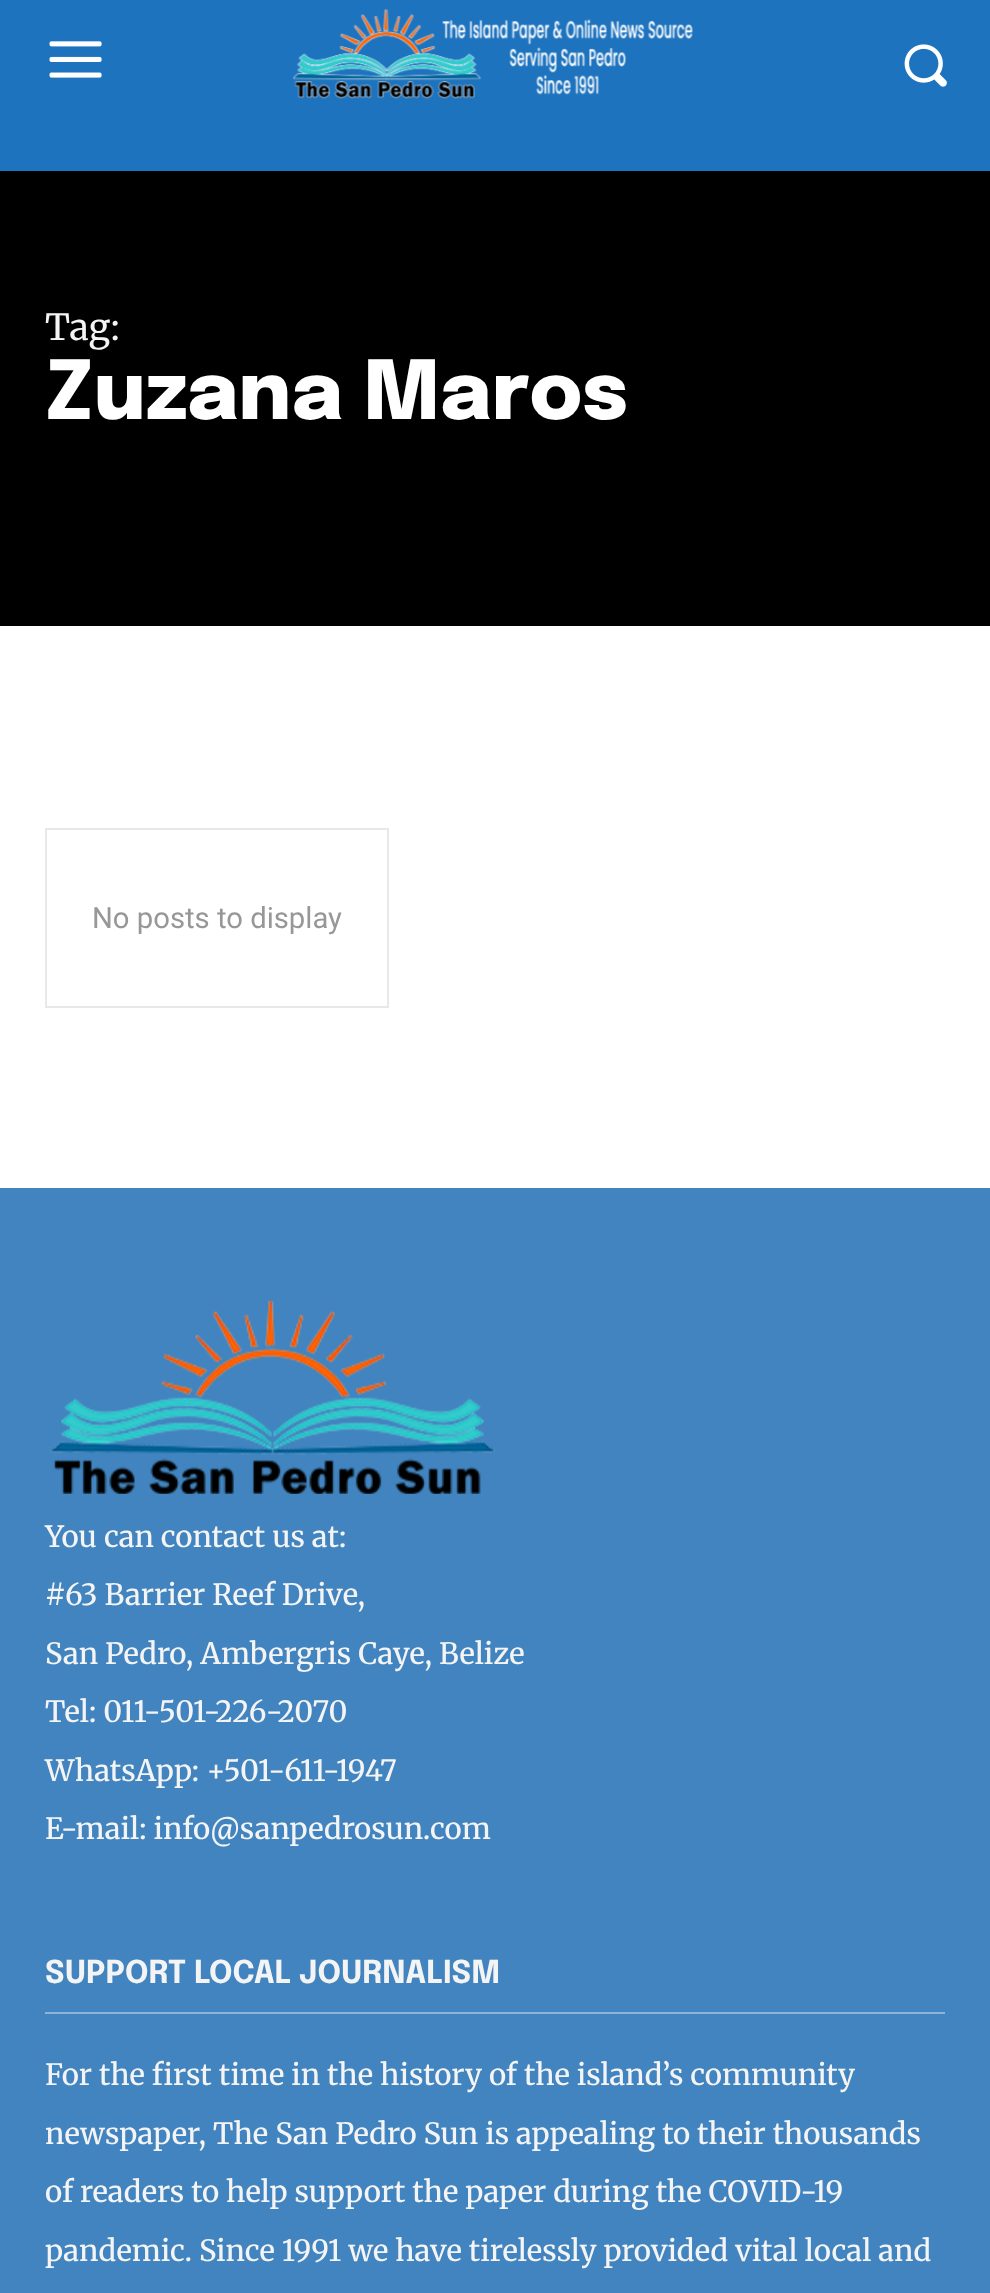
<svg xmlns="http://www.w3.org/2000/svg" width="990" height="2293">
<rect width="100%" height="100%" fill="#fff"/>
<rect width="990" height="171" fill="#1e73be"/>
<image x="49" y="41" width="53" height="37" href="media/1.png"/>
<image x="292" y="8" width="401" height="91" href="media/2.png"/>
<image x="904" y="44" width="43" height="43" href="media/3.png"/>
<rect y="171" width="990" height="455" fill="#000"/>
<text x="45" y="340" style="font-family:Merriweather;font-size:36px;fill:#f4f4f4">Tag:</text>
<text x="45" y="419" style="font-family:Epilogue;font-size:81px;font-weight:800;fill:#fff">Zuzana Maros</text>
<rect x="46" y="829" width="342" height="178" fill="none" stroke="#e8e8e8" stroke-width="2"/>
<text x="92" y="928" style="font-family:Roboto;font-size:29.25px;fill:#979797">No posts to display</text>
<rect y="1188" width="990" height="1105" fill="#4184bf"/>
<image x="50" y="1301" width="445" height="193" href="media/4.png"/>
<text x="45" y="1547" style="font-family:Merriweather;font-size:29.25px;font-weight:500;fill:#f4f4f4">You can contact us at:</text>
<text x="45" y="1605" style="font-family:Merriweather;font-size:29.25px;font-weight:500;fill:#f4f4f4">#63 Barrier Reef Drive,</text>
<text x="45" y="1664" style="font-family:Merriweather;font-size:29.25px;font-weight:500;fill:#f4f4f4">San Pedro, Ambergris Caye, Belize</text>
<text x="45" y="1722" style="font-family:Merriweather;font-size:29.25px;font-weight:500;fill:#f4f4f4">Tel: 011-501-226-2070</text>
<text x="45" y="1781" style="font-family:Merriweather;font-size:29.25px;font-weight:500;fill:#f4f4f4">WhatsApp: +501-611-1947</text>
<text x="45" y="1839" style="font-family:Merriweather;font-size:29.25px;font-weight:500;fill:#f4f4f4">E-mail: info@sanpedrosun.com</text>
<rect x="45" y="2012" width="900" height="2" fill="#8db5d9"/>
<text x="45" y="1983" style="font-family:Epilogue;font-size:31.5px;font-weight:bold;fill:#f4f4f4">SUPPORT LOCAL JOURNALISM</text>
<text x="45" y="2085" style="font-family:Merriweather;font-size:29.25px;font-weight:500;fill:#f4f4f4">For the first time in the history of the island’s community</text>
<text x="45" y="2144" style="font-family:Merriweather;font-size:29.25px;font-weight:500;fill:#f4f4f4">newspaper, The San Pedro Sun is appealing to their thousands</text>
<text x="45" y="2202" style="font-family:Merriweather;font-size:29.25px;font-weight:500;fill:#f4f4f4">of readers to help support the paper during the COVID-19</text>
<text x="45" y="2261" style="font-family:Merriweather;font-size:29.25px;font-weight:500;fill:#f4f4f4">pandemic. Since 1991 we have tirelessly provided vital local and</text>
</svg>
